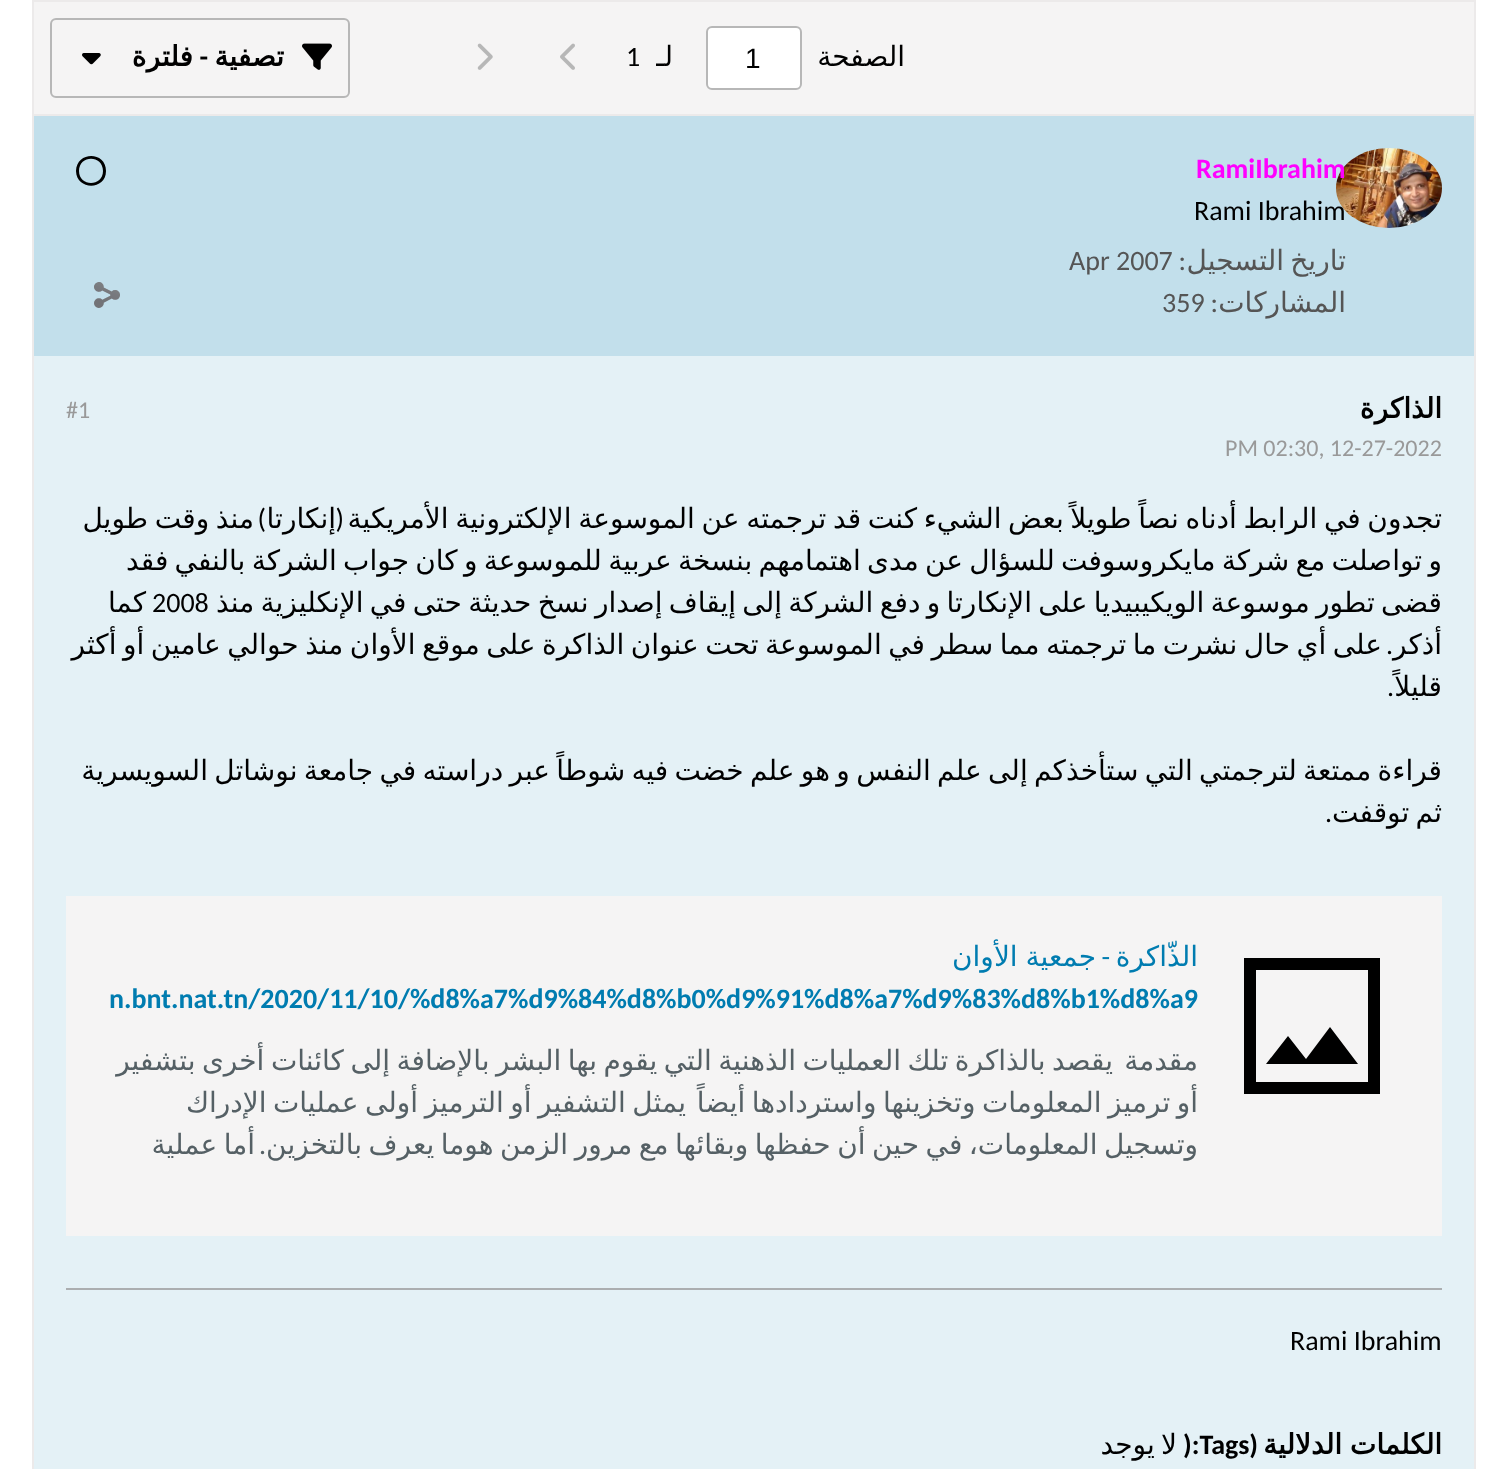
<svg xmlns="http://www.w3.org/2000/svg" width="1507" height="1469">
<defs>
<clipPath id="clip1"><rect x="106" y="1040" width="1092" height="126"/></clipPath>
</defs>
<rect width="100%" height="100%" fill="#fff"/>
<rect x="34" y="116" width="1440" height="240" fill="#c2dfeb"/>
<rect x="33" y="115" width="1442" height="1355" fill="none" stroke="#eceaea" stroke-width="2"/>
<rect x="33" y="1" width="1442" height="114" fill="#f5f4f4" stroke="#eceaea" stroke-width="2"/>
<text x="905" y="66" style="font-family:DejaVu Sans;font-size:28px;direction:rtl;fill:#000">الصفحة</text>
<rect x="707" y="27" width="94" height="62" rx="5" fill="#fff" stroke="#b7b7b7" stroke-width="2"/>
<text x="745" y="68" style="font-family:Liberation Sans;font-size:28px;fill:#000">1</text>
<text x="673" y="66" style="font-family:DejaVu Sans;font-size:28px;direction:rtl;fill:#000">لـ</text>
<text x="626" y="66" style="font-family:Carlito;font-size:28px;fill:#000">1</text>
<image x="560" y="43" width="15" height="27" href="media/1.png"/>
<image x="477" y="43" width="16" height="27" href="media/2.png"/>
<rect x="51" y="19" width="298" height="78" rx="5" fill="none" stroke="#b7b7b7" stroke-width="2"/>
<image x="302" y="43" width="30" height="27" href="media/3.png"/>
<text x="284" y="66" style="font-family:DejaVu Sans;font-size:28px;font-weight:bold;direction:rtl;fill:#000">تصفية</text>
<text x="208" y="66" style="font-family:Carlito;font-size:28px;font-weight:bold;direction:rtl;fill:#000">-</text>
<text x="193" y="66" style="font-family:DejaVu Sans;font-size:28px;font-weight:bold;direction:rtl;fill:#000">فلترة</text>
<image x="82" y="53" width="19" height="12" href="media/4.png"/>
<image x="1336" y="148" width="106" height="80" href="media/5.png"/>
<text x="1196" y="178" style="font-family:Carlito;font-size:28px;font-weight:bold;fill:#f0f">RamiIbrahim</text>
<text x="1194" y="220" style="font-family:Carlito;font-size:28px;fill:#000">Rami Ibrahim</text>
<text x="1346" y="270" word-spacing="-2.6" style="font-family:DejaVu Sans;font-size:28px;direction:rtl;fill:#555">تاريخ التسجيل</text>
<text x="1186" y="270" style="font-family:Carlito;font-size:28px;direction:rtl;fill:#555">:</text>
<text x="1069" y="270" style="font-family:Carlito;font-size:28px;fill:#555">Apr 2007</text>
<text x="1346" y="312" style="font-family:DejaVu Sans;font-size:28px;direction:rtl;fill:#555">المشاركات</text>
<text x="1218" y="312" style="font-family:Carlito;font-size:28px;direction:rtl;fill:#555">:</text>
<text x="1162" y="312" style="font-family:Carlito;font-size:28px;fill:#555">359</text>
<image x="94" y="282" width="26" height="26" href="media/6.png"/>
<path d="M103 171c0-16.5-24-16.5-24 0c0 16 24 16 24 0zm-27 0c.5-20 30-20 30 0c0 19.5-29.5 19.5-30 0z" fill="#000"/>
<rect x="34" y="356" width="1440" height="1113" fill="#e4f1f6"/>
<text x="1442" y="418" style="font-family:DejaVu Sans;font-size:28px;font-weight:bold;direction:rtl;fill:#000">الذاكرة</text>
<text x="1225" y="456" style="font-family:Carlito;font-size:24px;fill:#999">PM 02:30, 12-27-2022</text>
<text x="66" y="418" style="font-family:Carlito;font-size:24px;fill:#999">#1</text>
<text x="1442" y="528" word-spacing="-2.25" style="font-family:DejaVu Sans;font-size:28px;direction:rtl;fill:#000">تجدون في الرابط أدناه نصاً طويلاً بعض الشيء كنت قد ترجمته عن الموسوعة الإلكترونية الأمريكية</text>
<text x="344" y="528" style="font-family:Carlito;font-size:28px;direction:rtl;fill:#000">(</text>
<text x="336" y="528" style="font-family:DejaVu Sans;font-size:28px;direction:rtl;fill:#000">إنكارتا</text>
<text x="266" y="528" style="font-family:Carlito;font-size:28px;direction:rtl;fill:#000">)</text>
<text x="254" y="528" word-spacing="-2.25" style="font-family:DejaVu Sans;font-size:28px;direction:rtl;fill:#000">منذ وقت طويل</text>
<text x="1442" y="570" word-spacing="-2.6" style="font-family:DejaVu Sans;font-size:28px;direction:rtl;fill:#000">و تواصلت مع شركة مايكروسوفت للسؤال عن مدى اهتمامهم بنسخة عربية للموسوعة و كان جواب الشركة بالنفي فقد</text>
<text x="1442" y="612" word-spacing="-2.6" style="font-family:DejaVu Sans;font-size:28px;direction:rtl;fill:#000">قضى تطور موسوعة الويكيبيديا على الإنكارتا و دفع الشركة إلى إيقاف إصدار نسخ حديثة حتى في الإنكليزية منذ</text>
<text x="152" y="612" style="font-family:Carlito;font-size:28px;fill:#000">2008</text>
<text x="146" y="612" style="font-family:DejaVu Sans;font-size:28px;direction:rtl;fill:#000">كما</text>
<text x="1382" y="654" word-spacing="-2.4" style="font-family:DejaVu Sans;font-size:28px;direction:rtl;fill:#000">على أي حال نشرت ما ترجمته مما سطر في الموسوعة تحت عنوان الذاكرة على موقع الأوان منذ حوالي عامين أو أكثر</text>
<text x="1393" y="654" style="font-family:Carlito;font-size:28px;direction:rtl;fill:#000">.</text>
<text x="1442" y="654" style="font-family:DejaVu Sans;font-size:28px;direction:rtl;fill:#000">أذكر</text>
<text x="1394" y="696" style="font-family:Carlito;font-size:28px;direction:rtl;fill:#000">.</text>
<text x="1442" y="696" style="font-family:DejaVu Sans;font-size:28px;direction:rtl;fill:#000">قليلاً</text>
<text x="1442" y="780" word-spacing="-2.6" style="font-family:DejaVu Sans;font-size:28px;direction:rtl;fill:#000">قراءة ممتعة لترجمتي التي ستأخذكم إلى علم النفس و هو علم خضت فيه شوطاً عبر دراسته في جامعة نوشاتل السويسرية</text>
<text x="1442" y="822" word-spacing="-2.6" style="font-family:DejaVu Sans;font-size:28px;direction:rtl;fill:#000">ثم توقفت</text>
<text x="1332" y="822" style="font-family:Carlito;font-size:28px;direction:rtl;fill:#000">.</text>
<rect x="66" y="896" width="1376" height="340" fill="#f5f4f4"/>
<path d="M1266 1064h92l-28-37l-24 32l-18-23zm-22 30v-136h136v136zm12-12h112v-112h-112zm0-112v112z" fill="#000"/>
<text x="1198" y="966" style="font-family:DejaVu Sans;font-size:28px;direction:rtl;fill:#007cb0">الذّاكرة</text>
<text x="1110" y="966" style="font-family:Carlito;font-size:28px;direction:rtl;fill:#007cb0">-</text>
<text x="1096" y="966" word-spacing="-1" style="font-family:DejaVu Sans;font-size:28px;direction:rtl;fill:#007cb0">جمعية الأوان</text>
<text x="109" y="1008" style="font-family:Carlito;font-size:28px;font-weight:bold;fill:#007cb0">n.bnt.nat.tn/2020/11/10/%d8%a7%d9%84%d8%b0%d9%91%d8%a7%d9%83%d8%b1%d8%a9</text>
<text x="1198" y="1070" style="font-family:DejaVu Sans;font-size:28px;direction:rtl;fill:#556065">مقدمة</text>
<text x="1113" y="1070" word-spacing="-2.4" style="font-family:DejaVu Sans;font-size:28px;direction:rtl;fill:#556065">يقصد بالذاكرة تلك العمليات الذهنية التي يقوم بها البشر بالإضافة إلى كائنات أخرى بتشفير</text>
<text x="686" y="1112" word-spacing="-2.4" style="font-family:DejaVu Sans;font-size:28px;direction:rtl;fill:#556065">يمثل التشفير أو الترميز أولى عمليات الإدراك</text>
<g clip-path="url(#clip1)">
<text x="1198" y="1112" word-spacing="-2.4" style="font-family:DejaVu Sans;font-size:28px;direction:rtl;fill:#556065">أو ترميز المعلومات وتخزينها واستردادها أيضاً</text>
<text x="1198" y="1154" word-spacing="-2.4" style="font-family:DejaVu Sans;font-size:28px;direction:rtl;fill:#556065">وتسجيل المعلومات، في حين أن حفظها وبقائها مع مرور الزمن هوما يعرف بالتخزين</text>
</g>
<text x="266" y="1154" style="font-family:Carlito;font-size:28px;direction:rtl;fill:#556065">.</text>
<text x="255" y="1154" word-spacing="-2.4" style="font-family:DejaVu Sans;font-size:28px;direction:rtl;fill:#556065">أما عملية</text>
<rect x="66" y="1288" width="1376" height="2" fill="#abaeb0"/>
<text x="1290" y="1350" style="font-family:Carlito;font-size:28px;fill:#000">Rami Ibrahim</text>
<text x="1442" y="1454" word-spacing="-1" style="font-family:DejaVu Sans;font-size:28px;font-weight:bold;direction:rtl;fill:#000">الكلمات الدلالية</text>
<text x="1258" y="1454" style="font-family:Carlito;font-size:28px;font-weight:bold;direction:rtl;fill:#000">(</text>
<text x="1183" y="1454" style="font-family:Carlito;font-size:28px;font-weight:bold;fill:#000">):Tags</text>
<text x="1177" y="1454" word-spacing="-2.6" style="font-family:DejaVu Sans;font-size:28px;direction:rtl;fill:#000">لا يوجد</text>
</svg>
